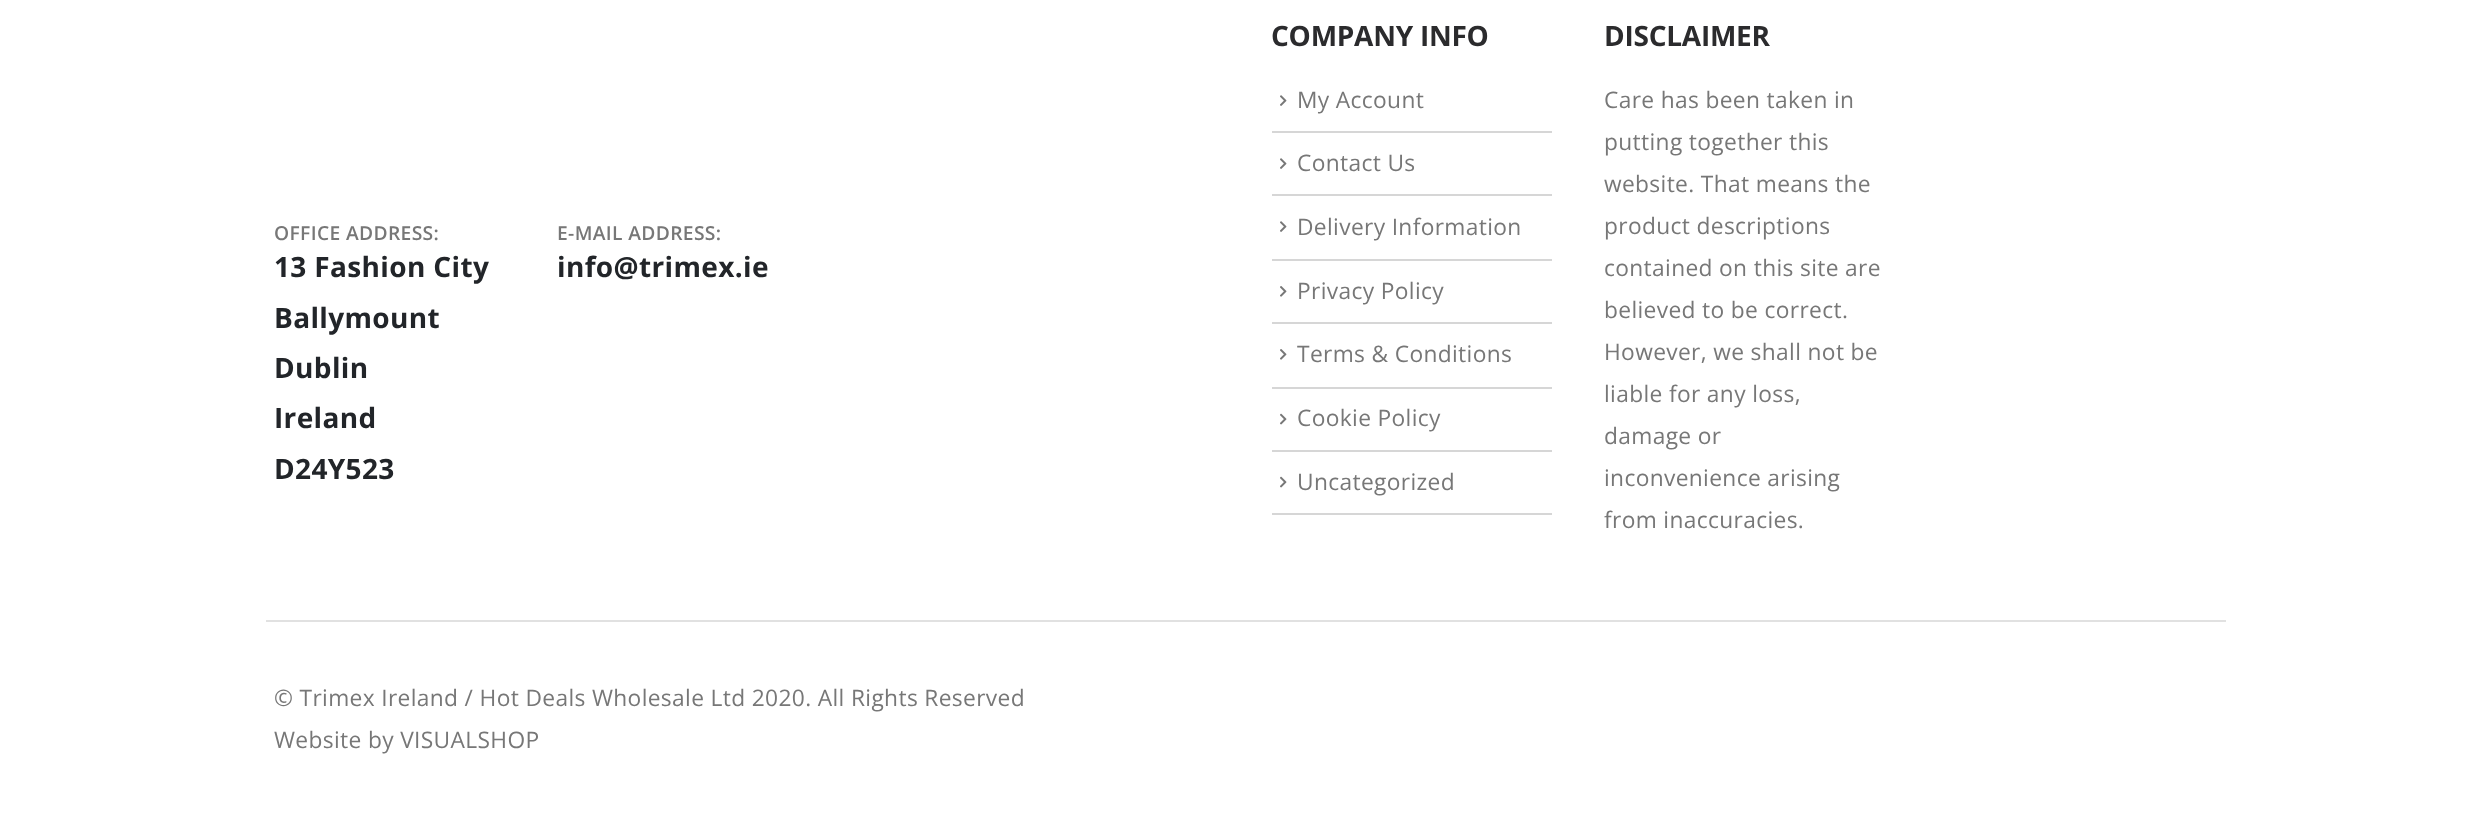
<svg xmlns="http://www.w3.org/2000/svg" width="2490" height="816">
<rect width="100%" height="100%" fill="#fff"/>
<text x="274" y="240" style="font-family:Open Sans;font-size:19.25px;font-weight:600;letter-spacing:0.35px;fill:#777">OFFICE ADDRESS:</text>
<text x="274" y="277" style="font-family:Open Sans;font-size:28px;font-weight:bold;letter-spacing:0.35px;fill:#222529">13 Fashion City</text>
<text x="274" y="328" style="font-family:Open Sans;font-size:28px;font-weight:bold;letter-spacing:0.35px;fill:#222529">Ballymount</text>
<text x="274" y="378" style="font-family:Open Sans;font-size:28px;font-weight:bold;letter-spacing:0.35px;fill:#222529">Dublin</text>
<text x="274" y="428" style="font-family:Open Sans;font-size:28px;font-weight:bold;letter-spacing:0.35px;fill:#222529">Ireland</text>
<text x="274" y="479" style="font-family:Open Sans;font-size:28px;font-weight:bold;letter-spacing:0.35px;fill:#222529">D24Y523</text>
<text x="557" y="240" style="font-family:Open Sans;font-size:19.25px;font-weight:600;letter-spacing:0.35px;fill:#777">E-MAIL ADDRESS:</text>
<text x="557" y="277" style="font-family:Open Sans;font-size:28px;font-weight:bold;letter-spacing:0.35px;fill:#222529">info@trimex.ie</text>
<text x="1271" y="46" style="font-family:Open Sans;font-size:28px;font-weight:bold;letter-spacing:-0.25px;fill:#2b2b2d">COMPANY INFO</text>
<rect x="1272" y="513" width="280" height="2" fill="#d6d6d6"/>
<image x="1280" y="95" width="7" height="11" href="media/1.png"/>
<text x="1297" y="108" style="font-family:Open Sans;font-size:22.75px;letter-spacing:0.35px;fill:#777">My Account</text>
<rect x="1272" y="131" width="280" height="2" fill="#d6d6d6"/>
<image x="1280" y="158" width="7" height="11" href="media/1.png"/>
<text x="1297" y="171" style="font-family:Open Sans;font-size:22.75px;letter-spacing:0.35px;fill:#777">Contact Us</text>
<rect x="1272" y="194" width="280" height="2" fill="#d6d6d6"/>
<image x="1280" y="221" width="7" height="11" href="media/1.png"/>
<text x="1297" y="235" style="font-family:Open Sans;font-size:22.75px;letter-spacing:0.35px;fill:#777">Delivery Information</text>
<rect x="1272" y="259" width="280" height="2" fill="#d6d6d6"/>
<image x="1280" y="286" width="7" height="11" href="media/2.png"/>
<text x="1297" y="299" style="font-family:Open Sans;font-size:22.75px;letter-spacing:0.35px;fill:#777">Privacy Policy</text>
<rect x="1272" y="322" width="280" height="2" fill="#d6d6d6"/>
<image x="1280" y="349" width="7" height="11" href="media/2.png"/>
<text x="1297" y="362" style="font-family:Open Sans;font-size:22.75px;letter-spacing:0.35px;fill:#777">Terms &amp; Conditions</text>
<rect x="1272" y="387" width="280" height="2" fill="#d6d6d6"/>
<image x="1280" y="413" width="7" height="12" href="media/3.png"/>
<text x="1297" y="426" style="font-family:Open Sans;font-size:22.75px;letter-spacing:0.35px;fill:#777">Cookie Policy</text>
<rect x="1272" y="450" width="280" height="2" fill="#d6d6d6"/>
<image x="1280" y="476" width="7" height="12" href="media/3.png"/>
<text x="1297" y="490" style="font-family:Open Sans;font-size:22.75px;letter-spacing:0.35px;fill:#777">Uncategorized</text>
<text x="1604" y="46" style="font-family:Open Sans;font-size:28px;font-weight:bold;letter-spacing:-0.25px;fill:#2b2b2d">DISCLAIMER</text>
<text x="1604" y="108" style="font-family:Open Sans;font-size:22.75px;letter-spacing:0.35px;fill:#777">Care has been taken in</text>
<text x="1604" y="150" style="font-family:Open Sans;font-size:22.75px;letter-spacing:0.35px;fill:#777">putting together this</text>
<text x="1604" y="192" style="font-family:Open Sans;font-size:22.75px;letter-spacing:0.35px;fill:#777">website. That means the</text>
<text x="1604" y="234" style="font-family:Open Sans;font-size:22.75px;letter-spacing:0.35px;fill:#777">product descriptions</text>
<text x="1604" y="276" style="font-family:Open Sans;font-size:22.75px;letter-spacing:0.35px;fill:#777">contained on this site are</text>
<text x="1604" y="318" style="font-family:Open Sans;font-size:22.75px;letter-spacing:0.35px;fill:#777">believed to be correct.</text>
<text x="1604" y="360" style="font-family:Open Sans;font-size:22.75px;letter-spacing:0.35px;fill:#777">However, we shall not be</text>
<text x="1604" y="402" style="font-family:Open Sans;font-size:22.75px;letter-spacing:0.35px;fill:#777">liable for any loss,</text>
<text x="1604" y="444" style="font-family:Open Sans;font-size:22.75px;letter-spacing:0.35px;fill:#777">damage or</text>
<text x="1604" y="486" style="font-family:Open Sans;font-size:22.75px;letter-spacing:0.35px;fill:#777">inconvenience arising</text>
<text x="1604" y="528" style="font-family:Open Sans;font-size:22.75px;letter-spacing:0.35px;fill:#777">from inaccuracies.</text>
<rect x="266" y="620" width="1960" height="2" fill="#e1e1e1"/>
<text x="274" y="706" style="font-family:Open Sans;font-size:22.75px;letter-spacing:0.35px;fill:#777">© Trimex Ireland / Hot Deals Wholesale Ltd 2020. All Rights Reserved</text>
<text x="274" y="748" style="font-family:Open Sans;font-size:22.75px;letter-spacing:0.35px;fill:#777">Website by VISUALSHOP</text>
</svg>
